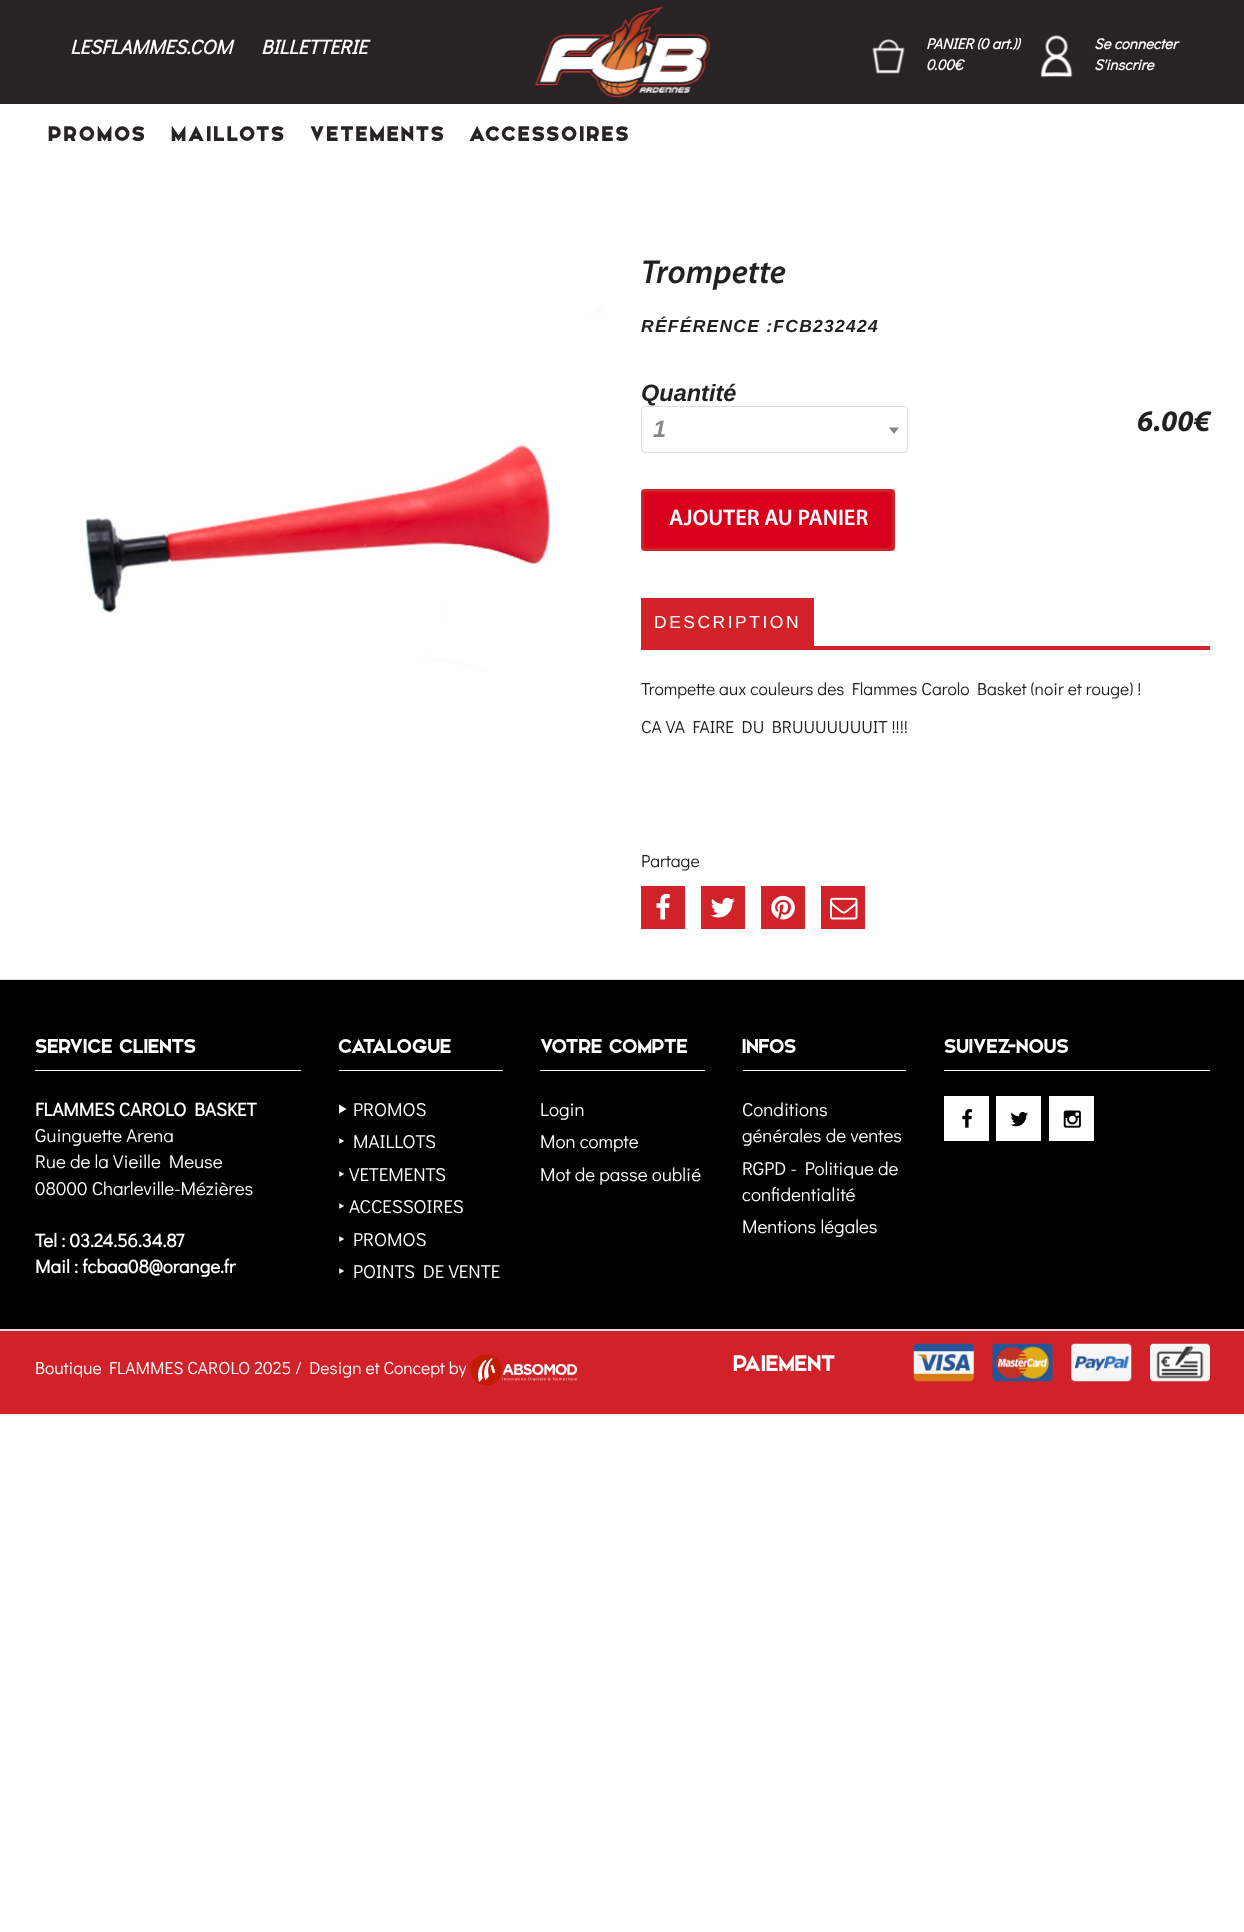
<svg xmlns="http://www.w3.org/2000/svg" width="1244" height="1932">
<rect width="100%" height="100%" fill="#fff"/>
<rect width="1244" height="104" fill="#282425"/>
<text x="70" y="54" style="font-family:Didact Gothic;font-size:20px;font-weight:bold;font-style:italic;fill:#fff">LESFLAMMES.COM</text>
<text x="261" y="54" style="font-family:Didact Gothic;font-size:20px;font-weight:bold;font-style:italic;fill:#fff">BILLETTERIE</text>
<image x="534" y="6" width="176" height="92" href="media/1.png"/>
<image x="872" y="39" width="33" height="35" href="media/2.png"/>
<text x="926" y="49" style="font-family:Didact Gothic;font-size:15px;font-weight:bold;font-style:italic;fill:#fff">PANIER (0 art.))</text>
<text x="926" y="70" style="font-family:Didact Gothic;font-size:15px;font-weight:bold;font-style:italic;fill:#fff">0.00€</text>
<image x="1040" y="35" width="33" height="43" href="media/3.png"/>
<text x="1094" y="49" style="font-family:Didact Gothic;font-size:15px;font-weight:bold;font-style:italic;fill:#fff">Se connecter</text>
<text x="1094" y="70" style="font-family:Didact Gothic;font-size:15px;font-weight:bold;font-style:italic;fill:#fff">S'inscrire</text>
<text x="48" y="141" style="font-family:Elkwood;font-size:26.75px;font-weight:bold;letter-spacing:2.75px;fill:#282425">PROMOS</text>
<text x="171" y="141" style="font-family:Elkwood;font-size:26.75px;font-weight:bold;letter-spacing:2.75px;fill:#282425">MAILLOTS</text>
<text x="310" y="141" style="font-family:Elkwood;font-size:26.75px;font-weight:bold;letter-spacing:2.75px;fill:#282425">VETEMENTS</text>
<text x="469" y="141" style="font-family:Elkwood;font-size:26.75px;font-weight:bold;letter-spacing:2.75px;fill:#282425">ACCESSOIRES</text>
<image x="85" y="308" width="518" height="364" href="media/4.png"/>
<text x="641" y="283" style="font-family:Myriad;font-size:33.5px;font-weight:600;font-style:italic;fill:#212121">Trompette</text>
<text x="641" y="332" style="font-family:Arimo;font-size:17.5px;font-weight:bold;font-style:italic;letter-spacing:1.25px;fill:#212121">RÉFÉRENCE :FCB232424</text>
<text x="641" y="401" style="font-family:Arimo;font-size:23.5px;font-weight:bold;font-style:italic;fill:#212121">Quantité</text>
<rect x="641.5" y="406.5" width="266" height="46" rx="3.5" fill="none" stroke="#ddd"/>
<text x="653" y="437" style="font-family:Arimo;font-size:23.5px;font-weight:bold;font-style:italic;fill:#888">1</text>
<path d="M889 427.5h10l-5 6.5z" fill="#888"/>
<text x="1137" y="431" style="font-family:Myriad;font-size:30px;font-weight:bold;font-style:italic;fill:#212121">6.00€</text>
<rect x="642.5" y="490.5" width="251" height="59" rx="2.5" fill="#d9001d" stroke="#d22229" stroke-width="3"/>
<text x="669" y="525" style="font-family:Myriad;font-size:22.5px;font-weight:600;fill:#fff">AJOUTER AU PANIER</text>
<rect x="641" y="646" width="569" height="4" fill="#d22229"/>
<rect x="641" y="598" width="173" height="48" fill="#d22229"/>
<text x="654" y="628" style="font-family:Liberation Sans;font-size:17.5px;letter-spacing:2.5px;fill:#fff">DESCRIPTION</text>
<text x="641" y="695" style="font-family:Didact Gothic;font-size:17.5px;fill:#212121">Trompette aux couleurs des Flammes Carolo Basket (noir et rouge) !</text>
<text x="641" y="733" style="font-family:Didact Gothic;font-size:17.5px;fill:#212121">CA VA FAIRE DU BRUUUUUUUIT !!!!</text>
<text x="641" y="867" style="font-family:Didact Gothic;font-size:17.5px;fill:#212121">Partage</text>
<rect x="641" y="886" width="44" height="43" fill="#d22229"/>
<image x="656" y="893" width="14" height="27" href="media/5.png"/>
<rect x="701" y="886" width="44" height="43" fill="#d22229"/>
<image x="710" y="897" width="25" height="21" href="media/6.png"/>
<rect x="761" y="886" width="44" height="43" fill="#d22229"/>
<image x="771" y="895" width="24" height="25" href="media/7.png"/>
<rect x="821" y="886" width="44" height="43" fill="#d22229"/>
<image x="830" y="897" width="28" height="23" href="media/8.png"/>
<rect y="980" width="1244" height="349" fill="#000"/>
<rect y="979" width="1244" height="1" fill="#ddd"/>
<rect y="1329" width="1244" height="2" fill="#ddd"/>
<rect x="35" y="1070" width="266" height="1" fill="#fff"/>
<text x="35" y="1053" style="font-family:Elkwood;font-size:26.75px;fill:#fff">SERVICE CLIENTS</text>
<text x="35" y="1116" style="font-family:Didact Gothic;font-size:18.75px;font-weight:bold;fill:#fff">FLAMMES CAROLO BASKET</text>
<text x="35" y="1142" style="font-family:Didact Gothic;font-size:18.75px;fill:#fff">Guinguette Arena</text>
<text x="35" y="1168" style="font-family:Didact Gothic;font-size:18.75px;fill:#fff">Rue de la Vieille Meuse</text>
<text x="35" y="1195" style="font-family:Didact Gothic;font-size:18.75px;fill:#fff">08000 Charleville-Mézières</text>
<text x="35" y="1247" style="font-family:Didact Gothic;font-size:18.75px;font-weight:bold;fill:#fff">Tel : 03.24.56.34.87</text>
<text x="35" y="1273" style="font-family:Didact Gothic;font-size:18.75px;font-weight:bold;fill:#fff">Mail : fcbaa08@orange.fr</text>
<rect x="339" y="1070" width="164" height="1" fill="#fff"/>
<text x="338" y="1053" style="font-family:Elkwood;font-size:26.75px;fill:#fff">CATALOGUE</text>
<text x="338" y="1116" style="font-family:Noto Sans;font-size:18.75px;font-weight:900;fill:#fff">‣</text>
<text x="353" y="1116" style="font-family:Didact Gothic;font-size:18.75px;fill:#fff">PROMOS</text>
<text x="338" y="1148" style="font-family:Noto Sans;font-size:18.75px;fill:#fff">‣</text>
<text x="353" y="1148" style="font-family:Didact Gothic;font-size:18.75px;fill:#fff">MAILLOTS</text>
<text x="338" y="1181" style="font-family:Noto Sans;font-size:18.75px;fill:#fff">‣</text>
<text x="349" y="1181" style="font-family:Didact Gothic;font-size:18.75px;fill:#fff">VETEMENTS</text>
<text x="338" y="1213" style="font-family:Noto Sans;font-size:18.75px;fill:#fff">‣</text>
<text x="349" y="1213" style="font-family:Didact Gothic;font-size:18.75px;fill:#fff">ACCESSOIRES</text>
<text x="338" y="1246" style="font-family:Noto Sans;font-size:18.75px;fill:#fff">‣</text>
<text x="353" y="1246" style="font-family:Didact Gothic;font-size:18.75px;fill:#fff">PROMOS</text>
<text x="338" y="1278" style="font-family:Noto Sans;font-size:18.75px;fill:#fff">‣</text>
<text x="353" y="1278" style="font-family:Didact Gothic;font-size:18.75px;fill:#fff">POINTS DE VENTE</text>
<rect x="540" y="1070" width="165" height="1" fill="#fff"/>
<text x="540" y="1053" style="font-family:Elkwood;font-size:26.75px;fill:#fff">VOTRE COMPTE</text>
<text x="540" y="1116" style="font-family:Didact Gothic;font-size:18.75px;fill:#fff">Login</text>
<text x="540" y="1148" style="font-family:Didact Gothic;font-size:18.75px;fill:#fff">Mon compte</text>
<text x="540" y="1181" style="font-family:Didact Gothic;font-size:18.75px;fill:#fff">Mot de passe oublié</text>
<rect x="743" y="1070" width="163" height="1" fill="#fff"/>
<text x="742" y="1053" style="font-family:Elkwood;font-size:26.75px;fill:#fff">INFOS</text>
<text x="742" y="1116" style="font-family:Didact Gothic;font-size:18.75px;fill:#fff">Conditions</text>
<text x="742" y="1142" style="font-family:Didact Gothic;font-size:18.75px;fill:#fff">générales de ventes</text>
<text x="742" y="1175" style="font-family:Didact Gothic;font-size:18.75px;fill:#fff">RGPD - Politique de</text>
<text x="742" y="1201" style="font-family:Didact Gothic;font-size:18.75px;fill:#fff">confidentialité</text>
<text x="742" y="1233" style="font-family:Didact Gothic;font-size:18.75px;fill:#fff">Mentions légales</text>
<rect x="944" y="1070" width="266" height="1" fill="#fff"/>
<text x="944" y="1053" style="font-family:Elkwood;font-size:26.75px;fill:#fff">SUIVEZ-NOUS</text>
<rect x="944" y="1096" width="45" height="45" fill="#fff"/>
<image x="962" y="1109" width="10" height="19" href="media/9.png"/>
<rect x="996" y="1096" width="45" height="45" fill="#fff"/>
<image x="1010" y="1112" width="18" height="15" href="media/10.png"/>
<rect x="1049" y="1096" width="45" height="45" fill="#fff"/>
<image x="1063" y="1110" width="18" height="18" href="media/11.png"/>
<rect y="1331" width="1244" height="83" fill="#d22229"/>
<text x="35" y="1374" style="font-family:Didact Gothic;font-size:17.5px;fill:#fff">Boutique FLAMMES CAROLO 2025 / Design et Concept by</text>
<image x="470" y="1354" width="108" height="32" href="media/12.png"/>
<text x="733" y="1371" style="font-family:Elkwood;font-size:30px;fill:#fff">PAIEMENT</text>
<image x="913" y="1343" width="61" height="39" href="media/13.png"/>
<image x="992" y="1343" width="61" height="39" href="media/14.png"/>
<image x="1071" y="1343" width="61" height="39" href="media/15.png"/>
<image x="1150" y="1343" width="60" height="39" href="media/16.png"/>
</svg>
